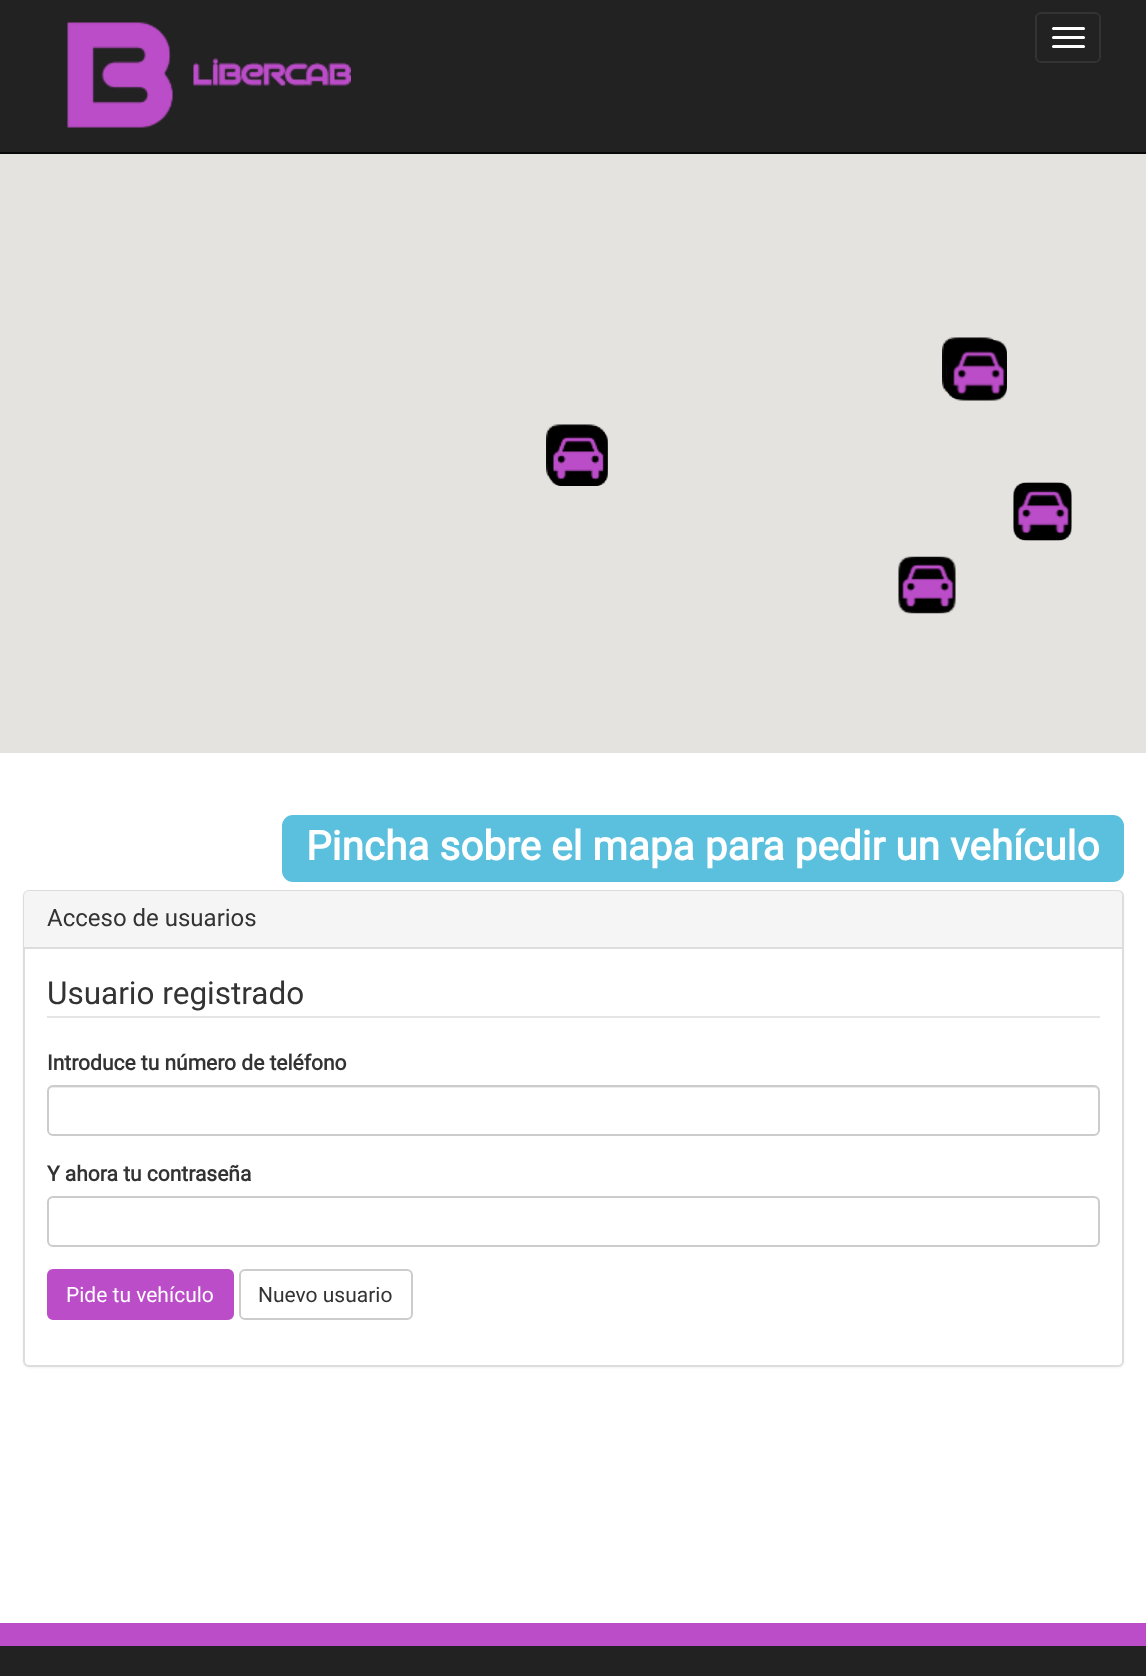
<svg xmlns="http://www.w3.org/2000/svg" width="1146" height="1676">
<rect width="100%" height="100%" fill="#fff"/>
<rect width="1146" height="152" fill="#222"/>
<rect y="152" width="1146" height="2" fill="#090909"/>
<image x="67" y="22" width="284" height="106" href="media/1.png"/>
<rect x="1036" y="13" width="64" height="49" rx="5" fill="none" stroke="#333" stroke-width="2"/>
<rect x="1052" y="27" width="33" height="3" rx="1.5" fill="#fff"/>
<rect x="1052" y="36" width="33" height="3" rx="1.5" fill="#fff"/>
<rect x="1052" y="45" width="33" height="3" rx="1.5" fill="#fff"/>
<rect y="154" width="1146" height="599" fill="#e5e3df"/>
<image x="942" y="337" width="56" height="58" href="media/2.png"/>
<image x="949" y="340" width="58" height="58" href="media/4.png"/>
<image x="949" y="340" width="58" height="58" href="media/5.png"/>
<image x="946" y="340" width="58" height="58" href="media/3.png"/>
<image x="950" y="343" width="57" height="56" href="media/6.png"/>
<image x="951" y="343" width="56" height="56" href="media/7.png"/>
<image x="951" y="343" width="56" height="56" href="media/8.png"/>
<image x="946" y="349" width="58" height="50" href="media/9.png"/>
<image x="946" y="363" width="57" height="36" href="media/11.png"/>
<image x="950" y="349" width="57" height="52" href="media/10.png"/>
<image x="546" y="424" width="57" height="58" href="media/12.png"/>
<image x="550" y="426" width="56" height="56" href="media/13.png"/>
<image x="550" y="430" width="58" height="56" href="media/14.png"/>
<image x="550" y="430" width="58" height="56" href="media/15.png"/>
<image x="550" y="430" width="58" height="56" href="media/16.png"/>
<image x="549" y="436" width="56" height="50" href="media/17.png"/>
<image x="1013" y="483" width="59" height="57" href="media/21.png"/>
<image x="1013" y="482" width="59" height="59" href="media/18.png"/>
<image x="1013" y="483" width="59" height="57" href="media/22.png"/>
<image x="1013" y="482" width="59" height="59" href="media/19.png"/>
<image x="1013" y="482" width="59" height="59" href="media/20.png"/>
<image x="1013" y="483" width="59" height="57" href="media/23.png"/>
<image x="898" y="556" width="58" height="58" href="media/24.png"/>
<rect x="282" y="815" width="842" height="67" rx="11" fill="#5bc0de"/>
<text x="306" y="860" style="font-family:Roboto;font-size:40.5px;font-weight:bold;fill:#fff">Pincha sobre el mapa para pedir un vehículo</text>
<rect x="23" y="891" width="1101" height="477" rx="6" fill="#0000000d" filter="blur(1px)"/>
<rect x="24" y="891" width="1099" height="475" rx="5" fill="#fff" stroke="#ddd" stroke-width="2"/>
<path d="M29 891h1088c3 0 5 2 5 5v52h-1098v-52c0-3 2-5 5-5z" fill="#f5f5f5"/>
<rect x="24" y="947" width="1098" height="2" fill="#ddd"/>
<text x="47" y="926" style="font-family:Roboto;font-size:24px;fill:#333">Acceso de usuarios</text>
<rect x="47" y="1016" width="1053" height="2" fill="#e5e5e5"/>
<text x="47" y="1004" style="font-family:Roboto;font-size:31.5px;fill:#333">Usuario registrado</text>
<text x="47" y="1070" style="font-family:Roboto;font-size:21px;font-weight:bold;fill:#333">Introduce tu número de teléfono</text>
<path d="M52 1088h1042c2 0 4 2 4 4c0-3-2-6-5-6h-1040c-3 0-5 3-5 6c0-2 2-4 4-4z" fill="#ececec"/>
<rect x="48" y="1086" width="1051" height="49" rx="5" fill="none" stroke="#ccc" stroke-width="2"/>
<text x="47" y="1181" style="font-family:Roboto;font-size:21px;font-weight:bold;fill:#333">Y ahora tu contraseña</text>
<path d="M52 1198h1042c2 0 4 3 4 5c0-3-2-6-5-6h-1040c-3 0-5 3-5 6c0-2 2-5 4-5z" fill="#ececec"/>
<rect x="48" y="1197" width="1051" height="49" rx="5" fill="none" stroke="#ccc" stroke-width="2"/>
<rect x="48" y="1270" width="185" height="49" rx="5" fill="#bc4dc9" stroke="#bc4dc9" stroke-width="2"/>
<text x="66" y="1302" style="font-family:Roboto;font-size:21px;fill:#fff">Pide tu vehículo</text>
<rect x="240" y="1270" width="172" height="49" rx="5" fill="none" stroke="#ccc" stroke-width="2"/>
<text x="258" y="1302" style="font-family:Roboto;font-size:21px;fill:#333">Nuevo usuario</text>
<rect y="1623" width="1146" height="23" fill="#bc4dc9"/>
<rect y="1646" width="1146" height="30" fill="#222"/>
</svg>
